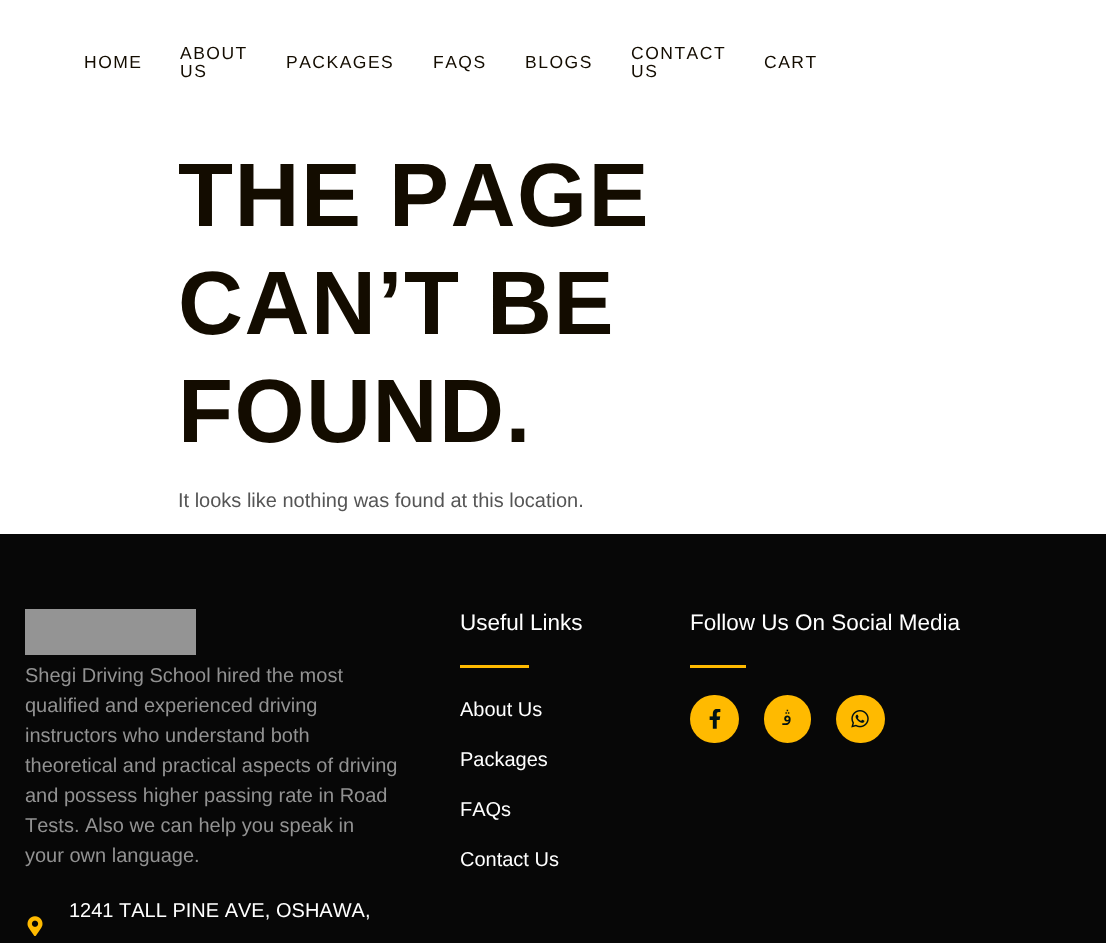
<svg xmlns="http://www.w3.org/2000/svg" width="1106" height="943">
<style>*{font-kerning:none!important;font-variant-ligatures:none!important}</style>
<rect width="100%" height="100%" fill="#fff"/>
<text x="84" y="68" style="font-family:Liberation Sans;font-size:17.5px;letter-spacing:1.5px;fill:#130c00">HOME</text>
<text x="180" y="59" style="font-family:Liberation Sans;font-size:17.5px;letter-spacing:1.5px;fill:#130c00">ABOUT</text>
<text x="180" y="77" style="font-family:Liberation Sans;font-size:17.5px;letter-spacing:1.5px;fill:#130c00">US</text>
<text x="286" y="68" style="font-family:Liberation Sans;font-size:17.5px;letter-spacing:1.5px;fill:#130c00">PACKAGES</text>
<text x="433" y="68" style="font-family:Liberation Sans;font-size:17.5px;letter-spacing:1.5px;fill:#130c00">FAQS</text>
<text x="525" y="68" style="font-family:Liberation Sans;font-size:17.5px;letter-spacing:1.5px;fill:#130c00">BLOGS</text>
<text x="631" y="59" style="font-family:Liberation Sans;font-size:17.5px;letter-spacing:1.5px;fill:#130c00">CONTACT</text>
<text x="631" y="77" style="font-family:Liberation Sans;font-size:17.5px;letter-spacing:1.5px;fill:#130c00">US</text>
<text x="764" y="68" style="font-family:Liberation Sans;font-size:17.5px;letter-spacing:1.5px;fill:#130c00">CART</text>
<text x="178" y="226" style="font-family:Liberation Sans;font-size:90px;font-weight:bold;letter-spacing:1.5px;fill:#130c00">THE PAGE</text>
<text x="178" y="334" style="font-family:Liberation Sans;font-size:90px;font-weight:bold;letter-spacing:1.5px;fill:#130c00">CAN’T BE</text>
<text x="178" y="442" style="font-family:Liberation Sans;font-size:90px;font-weight:bold;letter-spacing:1.5px;fill:#130c00">FOUND.</text>
<text x="178" y="507" style="font-family:Liberation Sans;font-size:20px;fill:#555">It looks like nothing was found at this location.</text>
<rect y="534" width="1106" height="409" fill="#070707"/>
<rect x="25" y="609" width="171" height="46" fill="#949494"/>
<text x="25" y="682" style="font-family:Liberation Sans;font-size:20px;fill:#929292">Shegi Driving School hired the most</text>
<text x="25" y="712" style="font-family:Liberation Sans;font-size:20px;fill:#929292">qualified and experienced driving</text>
<text x="25" y="742" style="font-family:Liberation Sans;font-size:20px;fill:#929292">instructors who understand both</text>
<text x="25" y="772" style="font-family:Liberation Sans;font-size:20px;fill:#929292">theoretical and practical aspects of driving</text>
<text x="25" y="802" style="font-family:Liberation Sans;font-size:20px;fill:#929292">and possess higher passing rate in Road</text>
<text x="25" y="832" style="font-family:Liberation Sans;font-size:20px;fill:#929292">Tests. Also we can help you speak in</text>
<text x="25" y="862" style="font-family:Liberation Sans;font-size:20px;fill:#929292">your own language.</text>
<text x="69" y="917" style="font-family:Liberation Sans;font-size:20px;fill:#fff">1241 TALL PINE AVE,</text>
<text x="276" y="917" style="font-family:Liberation Sans;font-size:20px;fill:#fff">OSHAWA,</text>
<image x="27" y="916" width="16" height="20" href="media/1.png"/>
<text x="460" y="630" style="font-family:Liberation Sans;font-size:22.5px;fill:#fff">Useful Links</text>
<rect x="460" y="665" width="69" height="3" fill="#ffba00"/>
<text x="460" y="716" style="font-family:Liberation Sans;font-size:20px;fill:#fff">About Us</text>
<text x="460" y="766" style="font-family:Liberation Sans;font-size:20px;fill:#fff">Packages</text>
<text x="460" y="816" style="font-family:Liberation Sans;font-size:20px;fill:#fff">FAQs</text>
<text x="460" y="866" style="font-family:Liberation Sans;font-size:20px;fill:#fff">Contact Us</text>
<text x="690" y="630" style="font-family:Liberation Sans;font-size:22.5px;fill:#fff">Follow Us On Social Media</text>
<rect x="690" y="665" width="56" height="3" fill="#ffba00"/>
<rect x="690" y="695" width="49" height="48" rx="24" fill="#ffba00"/>
<image x="709" y="709" width="12" height="20" href="media/2.png"/>
<rect x="764" y="695" width="47" height="48" rx="23.5" fill="#ffba00"/>
<text x="792" y="725" style="font-family:DejaVu Sans;font-size:20px;direction:rtl;fill:#001213">ﭬ</text>
<rect x="836" y="695" width="49" height="48" rx="24" fill="#ffba00"/>
<image x="851" y="710" width="18" height="18" href="media/3.png"/>
</svg>
